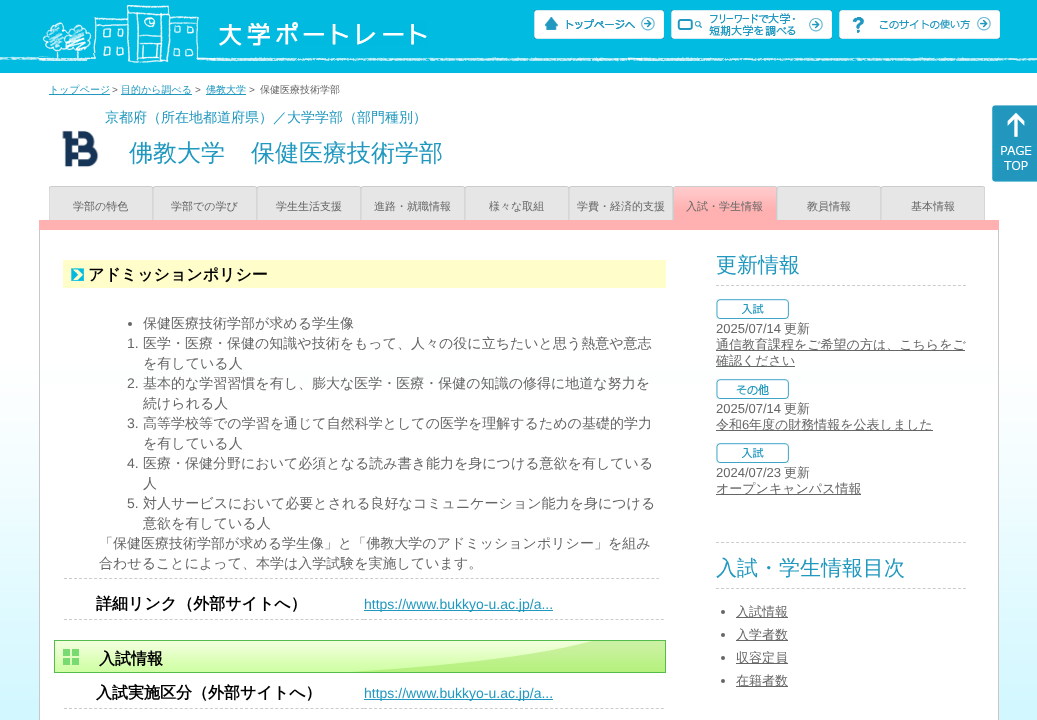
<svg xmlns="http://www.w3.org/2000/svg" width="1037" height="720">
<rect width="100%" height="100%" fill="#fff"/>
<image x="0" y="73" width="1037" height="647" href="media/1.png"/>
<image x="0" y="0" width="1037" height="73" href="media/2.png"/>
<image x="39" y="5" width="960" height="58" href="media/3.png"/>
<image x="219" y="20" width="208" height="26" href="media/4.png"/>
<image x="534" y="10" width="130" height="29" href="media/5.png"/>
<image x="671" y="10" width="161" height="29" href="media/6.png"/>
<image x="839" y="10" width="161" height="29" href="media/7.png"/>
<rect x="39" y="384" width="960" height="336" fill="#fff"/>
<rect x="49" y="94" width="61" height="1" fill="#2198bf"/>
<text x="49" y="93" style="font-family:WenQuanYi Zen Hei;font-size:10px;font-weight:500;fill:#2198bf">トップページ</text>
<text x="112" y="93" style="font-family:Liberation Sans;font-size:10px;fill:#666">&gt;</text>
<rect x="121" y="94" width="71" height="1" fill="#2198bf"/>
<text x="121" y="93" style="font-family:WenQuanYi Zen Hei;font-size:10px;font-weight:500;fill:#2198bf">目的から調べる</text>
<text x="195" y="93" style="font-family:Liberation Sans;font-size:10px;fill:#666">&gt;</text>
<rect x="206" y="94" width="40" height="1" fill="#2198bf"/>
<text x="206" y="93" style="font-family:WenQuanYi Zen Hei;font-size:10px;font-weight:500;fill:#2198bf">佛教大学</text>
<text x="249" y="93" style="font-family:Liberation Sans;font-size:10px;fill:#666">&gt;</text>
<text x="260" y="93" style="font-family:WenQuanYi Zen Hei;font-size:10px;font-weight:500;fill:#666">保健医療技術学部</text>
<text x="105" y="122" style="font-family:WenQuanYi Zen Hei;font-size:14px;font-weight:500;fill:#2198bf">京都府（所在地都道府県）／大学学部（部門種別）</text>
<image x="62" y="130" width="37" height="38" href="media/8.png"/>
<text x="129" y="161" style="font-family:WenQuanYi Zen Hei;font-size:24px;font-weight:500;fill:#2198bf">佛教大学</text>
<text x="251" y="161" style="font-family:WenQuanYi Zen Hei;font-size:24px;font-weight:500;fill:#2198bf">保健医療技術学部</text>
<rect x="39" y="220" width="960" height="10" fill="#ffb0b0"/>
<image x="49" y="186" width="104" height="34" href="media/9.png"/>
<text x="73" y="210" style="font-family:WenQuanYi Zen Hei;font-size:11px;font-weight:500;fill:#666">学部の特色</text>
<image x="153" y="186" width="104" height="34" href="media/9.png"/>
<text x="171" y="210" style="font-family:WenQuanYi Zen Hei;font-size:11px;font-weight:500;fill:#666">学部での学び</text>
<image x="257" y="186" width="104" height="34" href="media/9.png"/>
<text x="276" y="210" style="font-family:WenQuanYi Zen Hei;font-size:11px;font-weight:500;fill:#666">学生生活支援</text>
<image x="361" y="186" width="104" height="34" href="media/9.png"/>
<text x="374" y="210" style="font-family:WenQuanYi Zen Hei;font-size:11px;font-weight:500;fill:#666">進路・就職情報</text>
<image x="465" y="186" width="104" height="34" href="media/9.png"/>
<text x="489" y="210" style="font-family:WenQuanYi Zen Hei;font-size:11px;font-weight:500;fill:#666">様々な取組</text>
<image x="569" y="186" width="104" height="34" href="media/9.png"/>
<text x="577" y="210" style="font-family:WenQuanYi Zen Hei;font-size:11px;font-weight:500;fill:#666">学費・経済的支援</text>
<image x="673" y="186" width="104" height="34" href="media/10.png"/>
<text x="686" y="210" style="font-family:WenQuanYi Zen Hei;font-size:11px;font-weight:500;fill:#666">入試・学生情報</text>
<image x="777" y="186" width="104" height="34" href="media/9.png"/>
<text x="807" y="210" style="font-family:WenQuanYi Zen Hei;font-size:11px;font-weight:500;fill:#666">教員情報</text>
<image x="881" y="186" width="104" height="34" href="media/9.png"/>
<text x="911" y="210" style="font-family:WenQuanYi Zen Hei;font-size:11px;font-weight:500;fill:#666">基本情報</text>
<rect x="998" y="230" width="1" height="490" fill="#c8c8c8"/>
<rect x="39" y="230" width="1" height="490" fill="#c8c8c8"/>
<rect x="63" y="260" width="603" height="28" fill="#fffdca"/>
<image x="71" y="268" width="13" height="13" href="media/11.png"/>
<text x="88" y="280" style="font-family:WenQuanYi Zen Hei;font-size:16px;font-weight:bold;fill:#000">アドミッションポリシー</text>
<path d="M64 578.5h595" fill="none" stroke="#ccc" stroke-dasharray="3 2.02"/>
<circle cx="130" cy="324" r="2" fill="#666"/>
<text x="143" y="328" style="font-family:WenQuanYi Zen Hei;font-size:14px;font-weight:500;fill:#666">保健医療技術学部が求める学生像</text>
<text x="127" y="348" style="font-family:Liberation Sans;font-size:14px;fill:#666">1.</text>
<text x="143" y="348" style="font-family:WenQuanYi Zen Hei;font-size:14px;font-weight:500;fill:#666">医学・医療・保健の知識や技術をもって、人々の役に立ちたいと思う熱意や意志</text>
<text x="143" y="368" style="font-family:WenQuanYi Zen Hei;font-size:14px;font-weight:500;fill:#666">を有している人</text>
<text x="127" y="388" style="font-family:Liberation Sans;font-size:14px;fill:#666">2.</text>
<text x="143" y="388" style="font-family:WenQuanYi Zen Hei;font-size:14px;font-weight:500;fill:#666">基本的な学習習慣を有し、膨大な医学・医療・保健の知識の修得に地道な努力を</text>
<text x="143" y="408" style="font-family:WenQuanYi Zen Hei;font-size:14px;font-weight:500;fill:#666">続けられる人</text>
<text x="127" y="428" style="font-family:Liberation Sans;font-size:14px;fill:#666">3.</text>
<text x="143" y="428" style="font-family:WenQuanYi Zen Hei;font-size:14px;font-weight:500;fill:#666">高等学校等での学習を通じて自然科学としての医学を理解するための基礎的学力</text>
<text x="143" y="448" style="font-family:WenQuanYi Zen Hei;font-size:14px;font-weight:500;fill:#666">を有している人</text>
<text x="127" y="468" style="font-family:Liberation Sans;font-size:14px;fill:#666">4.</text>
<text x="143" y="468" style="font-family:WenQuanYi Zen Hei;font-size:14px;font-weight:500;fill:#666">医療・保健分野において必須となる読み書き能力を身につける意欲を有している</text>
<text x="143" y="488" style="font-family:WenQuanYi Zen Hei;font-size:14px;font-weight:500;fill:#666">人</text>
<text x="127" y="508" style="font-family:Liberation Sans;font-size:14px;fill:#666">5.</text>
<text x="143" y="508" style="font-family:WenQuanYi Zen Hei;font-size:14px;font-weight:500;fill:#666">対人サービスにおいて必要とされる良好なコミュニケーション能力を身につける</text>
<text x="143" y="528" style="font-family:WenQuanYi Zen Hei;font-size:14px;font-weight:500;fill:#666">意欲を有している人</text>
<text x="99" y="548" style="font-family:WenQuanYi Zen Hei;font-size:14px;font-weight:500;fill:#666">「保健医療技術学部が求める学生像」と「佛教大学のアドミッションポリシー」を組み</text>
<text x="99" y="568" style="font-family:WenQuanYi Zen Hei;font-size:14px;font-weight:500;fill:#666">合わせることによって、本学は入学試験を実施しています。</text>
<path d="M64 619.5h300" fill="none" stroke="#ccc" stroke-dasharray="3 2.03"/>
<text x="96" y="609" style="font-family:WenQuanYi Zen Hei;font-size:16px;font-weight:bold;fill:#000">詳細リンク（外部サイトへ）</text>
<path d="M364 619.5h300" fill="none" stroke="#ccc" stroke-dasharray="3 2.03"/>
<rect x="364" y="610" width="189" height="1" fill="#2198bf"/>
<text x="364" y="609" style="font-family:Liberation Sans;font-size:14px;fill:#2198bf">https://www.bukkyo-u.ac.jp/a...</text>
<image x="54" y="640" width="612" height="33" href="media/12.png"/>
<text x="99" y="664" style="font-family:WenQuanYi Zen Hei;font-size:16px;font-weight:bold;fill:#000">入試情報</text>
<path d="M64 708.5h300" fill="none" stroke="#ccc" stroke-dasharray="3 2.03"/>
<text x="96" y="698" style="font-family:WenQuanYi Zen Hei;font-size:16px;font-weight:bold;fill:#000">入試実施区分（外部サイトへ）</text>
<path d="M364 708.5h300" fill="none" stroke="#ccc" stroke-dasharray="3 2.03"/>
<rect x="364" y="699" width="189" height="1" fill="#2198bf"/>
<text x="364" y="698" style="font-family:Liberation Sans;font-size:14px;fill:#2198bf">https://www.bukkyo-u.ac.jp/a...</text>
<path d="M716 542.5h250" fill="none" stroke="#ccc" stroke-dasharray="3 2.04"/>
<path d="M716 285.5h250" fill="none" stroke="#ccc" stroke-dasharray="3 2.04"/>
<text x="716" y="272" style="font-family:WenQuanYi Zen Hei;font-size:21px;font-weight:500;fill:#2198bf">更新情報</text>
<image x="716" y="299" width="73" height="20" href="media/13.png"/>
<text x="716" y="333" style="font-family:Liberation Sans;font-size:13px;fill:#666">2025/07/14</text>
<text x="784" y="333" style="font-family:WenQuanYi Zen Hei;font-size:13px;font-weight:500;fill:#666">更新</text>
<rect x="716" y="350" width="249" height="1" fill="#666"/>
<text x="716" y="349" style="font-family:WenQuanYi Zen Hei;font-size:13px;font-weight:500;fill:#666">通信教育課程をご希望の方は、こちらをご</text>
<rect x="716" y="366" width="79" height="1" fill="#666"/>
<text x="716" y="365" style="font-family:WenQuanYi Zen Hei;font-size:13px;font-weight:500;fill:#666">確認ください</text>
<image x="716" y="379" width="73" height="20" href="media/14.png"/>
<text x="716" y="413" style="font-family:Liberation Sans;font-size:13px;fill:#666">2025/07/14</text>
<text x="784" y="413" style="font-family:WenQuanYi Zen Hei;font-size:13px;font-weight:500;fill:#666">更新</text>
<rect x="716" y="430" width="217" height="1" fill="#666"/>
<text x="716" y="429" style="font-family:WenQuanYi Zen Hei;font-size:13px;font-weight:500;fill:#666">令和</text>
<text x="742" y="429" style="font-family:Liberation Sans;font-size:13px;fill:#666">6</text>
<text x="749" y="429" style="font-family:WenQuanYi Zen Hei;font-size:13px;font-weight:500;fill:#666">年度の財務情報を公表しました</text>
<image x="716" y="443" width="73" height="20" href="media/13.png"/>
<text x="716" y="477" style="font-family:Liberation Sans;font-size:13px;fill:#666">2024/07/23</text>
<text x="784" y="477" style="font-family:WenQuanYi Zen Hei;font-size:13px;font-weight:500;fill:#666">更新</text>
<rect x="716" y="494" width="145" height="1" fill="#666"/>
<text x="716" y="493" style="font-family:WenQuanYi Zen Hei;font-size:13px;font-weight:500;fill:#666">オープンキャンパス情報</text>
<path d="M716 588.5h250" fill="none" stroke="#ccc" stroke-dasharray="3 2.04"/>
<text x="716" y="575" style="font-family:WenQuanYi Zen Hei;font-size:21px;font-weight:500;fill:#2198bf">入試・学生情報目次</text>
<circle cx="723" cy="612" r="2" fill="#666"/>
<rect x="736" y="617" width="52" height="1" fill="#666"/>
<text x="736" y="616" style="font-family:WenQuanYi Zen Hei;font-size:13px;font-weight:500;fill:#666">入試情報</text>
<circle cx="723" cy="635" r="2" fill="#666"/>
<rect x="736" y="640" width="52" height="1" fill="#666"/>
<text x="736" y="639" style="font-family:WenQuanYi Zen Hei;font-size:13px;font-weight:500;fill:#666">入学者数</text>
<circle cx="723" cy="658" r="2" fill="#666"/>
<rect x="736" y="663" width="52" height="1" fill="#666"/>
<text x="736" y="662" style="font-family:WenQuanYi Zen Hei;font-size:13px;font-weight:500;fill:#666">収容定員</text>
<circle cx="723" cy="681" r="2" fill="#666"/>
<rect x="736" y="686" width="52" height="1" fill="#666"/>
<text x="736" y="685" style="font-family:WenQuanYi Zen Hei;font-size:13px;font-weight:500;fill:#666">在籍者数</text>
<image x="992" y="105" width="45" height="77" href="media/15.png"/>
</svg>
